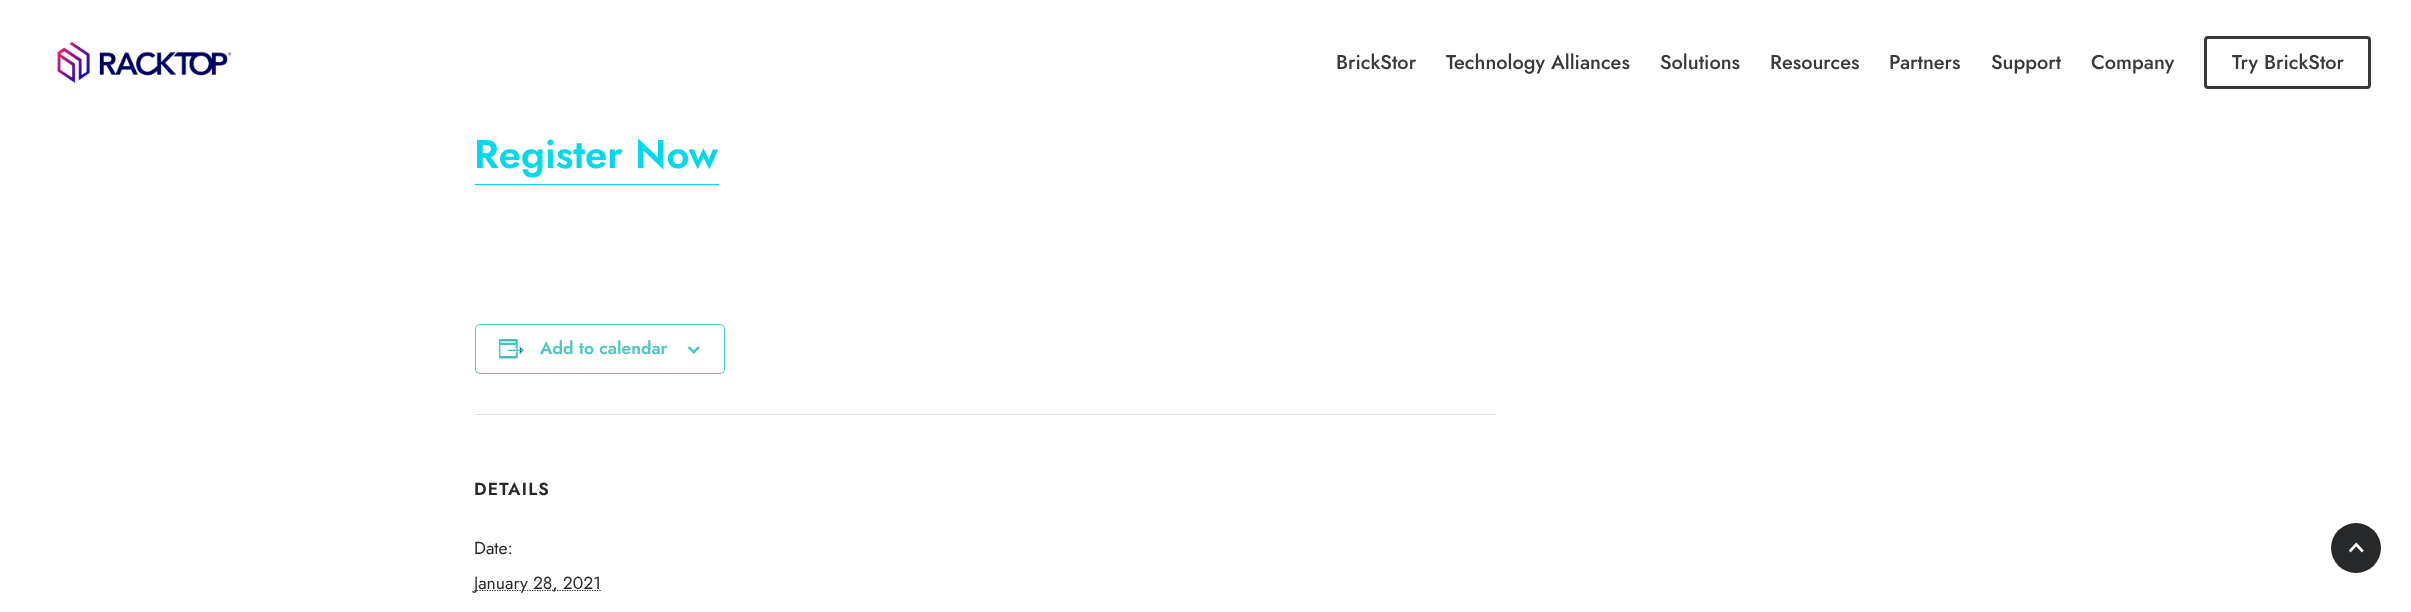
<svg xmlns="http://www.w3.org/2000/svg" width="2411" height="612">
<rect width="100%" height="100%" fill="#fff"/>
<image x="57" y="42" width="175" height="41" href="media/1.png"/>
<text x="1336" y="69" style="font-family:Jost;font-size:20px;font-weight:500;fill:#383838">BrickStor</text>
<text x="1446" y="69" style="font-family:Jost;font-size:20px;font-weight:500;fill:#383838">Technology Alliances</text>
<text x="1660" y="69" style="font-family:Jost;font-size:20px;font-weight:500;fill:#383838">Solutions</text>
<text x="1770" y="69" style="font-family:Jost;font-size:20px;font-weight:500;fill:#383838">Resources</text>
<text x="1889" y="69" style="font-family:Jost;font-size:20px;font-weight:500;fill:#383838">Partners</text>
<text x="1991" y="69" style="font-family:Jost;font-size:20px;font-weight:500;fill:#383838">Support</text>
<text x="2091" y="69" style="font-family:Jost;font-size:20px;font-weight:500;fill:#383838">Company</text>
<rect x="2205.5" y="37.5" width="164" height="50" rx="2.5" fill="none" stroke="#383838" stroke-width="3"/>
<text x="2232" y="69" style="font-family:Jost;font-size:20px;font-weight:500;fill:#383838">Try BrickStor</text>
<text x="474" y="168" style="font-family:Jost;font-size:40px;font-weight:600;fill:#00d9ea">Register Now</text>
<rect x="475" y="184" width="244" height="1" fill="#00d9ea"/>
<rect x="475.5" y="324.5" width="249" height="49" rx="4.5" fill="none" stroke="#4fc6c0"/>
<image x="499" y="339" width="25" height="20" href="media/2.png"/>
<text x="540" y="354" style="font-family:Jost;font-size:17.5px;font-weight:600;fill:#4fc6c0">Add to calendar</text>
<image x="688" y="346" width="12" height="8" href="media/3.png"/>
<rect x="475" y="414" width="1021" height="1" fill="#e4e4e4"/>
<text x="474" y="495" style="font-family:Jost;font-size:17.5px;font-weight:600;letter-spacing:1.25px;fill:#272727">DETAILS</text>
<text x="474" y="554" style="font-family:Jost;font-size:17.5px;fill:#272727">Date:</text>
<path d="M474.5 590.5h127" fill="none" stroke="#272727" stroke-width="1.2" stroke-dasharray="1.25 1.25"/>
<text x="474" y="589" style="font-family:Jost;font-size:17.5px;fill:#272727">January 28, 2021</text>
<circle cx="2356" cy="548" r="25" fill="#262829"/>
<image x="2349" y="542" width="15" height="11" href="media/4.png"/>
</svg>
